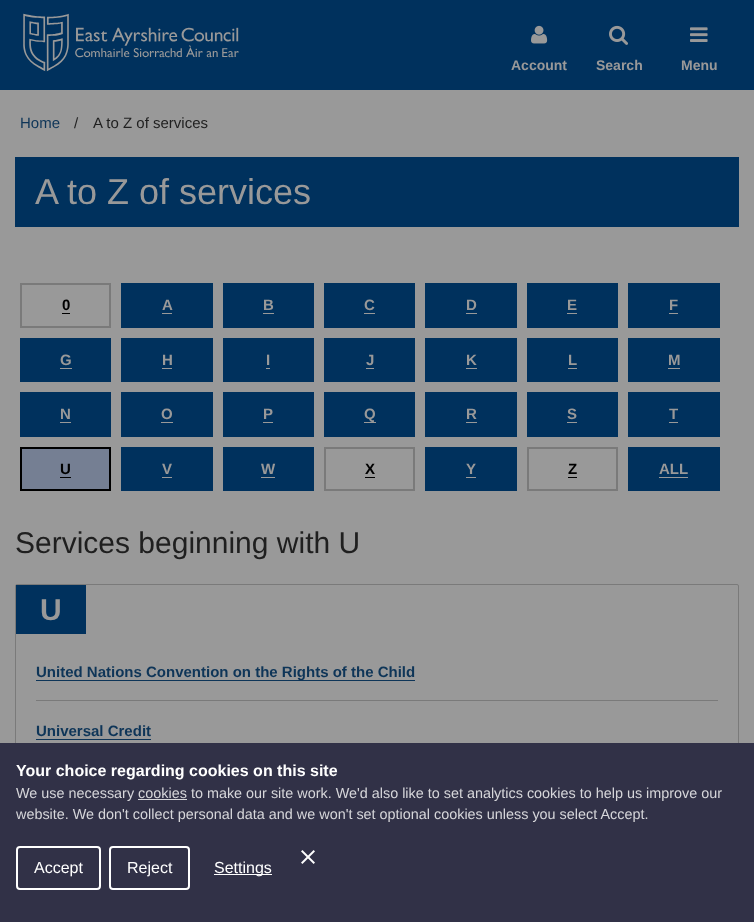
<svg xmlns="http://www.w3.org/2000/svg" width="754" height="922">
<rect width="100%" height="100%" fill="#999"/>
<rect width="754" height="90" fill="#00315d"/>
<image x="23" y="13" width="216" height="59" href="media/1.png"/>
<image x="531" y="25" width="17" height="19" href="media/2.png"/>
<text x="511" y="70" style="font-family:Liberation Sans;font-size:14px;font-weight:bold;fill:#999">Account</text>
<image x="609" y="25" width="19" height="20" href="media/3.png"/>
<text x="596" y="70" style="font-family:Liberation Sans;font-size:14px;font-weight:bold;fill:#999">Search</text>
<image x="690" y="27" width="18" height="15" href="media/4.png"/>
<text x="681" y="70" style="font-family:Liberation Sans;font-size:14px;font-weight:bold;fill:#999">Menu</text>
<text x="20" y="128" style="font-family:Liberation Sans;font-size:15px;fill:#0e3558">Home</text>
<text x="74" y="128" style="font-family:Liberation Sans;font-size:15px;fill:#1f1f1f">/</text>
<text x="93" y="128" style="font-family:Liberation Sans;font-size:15px;fill:#1f1f1f">A to Z of services</text>
<rect x="15" y="157" width="724" height="70" fill="#00315d"/>
<text x="35" y="204" style="font-family:Liberation Sans;font-size:36px;fill:#999">A to Z of services</text>
<rect x="62" y="313" width="8" height="1" fill="#000"/>
<rect x="21" y="284" width="89" height="43" fill="none" stroke="#7a7a7a" stroke-width="2"/>
<text x="62" y="310" style="font-family:Liberation Sans;font-size:15px;font-weight:bold;fill:#000">0</text>
<rect x="121" y="283" width="92" height="45" fill="#00315d"/>
<text x="162" y="310" style="font-family:Liberation Sans;font-size:15px;font-weight:bold;fill:#999">A</text>
<rect x="162" y="313" width="10" height="1" fill="#999"/>
<rect x="223" y="283" width="91" height="45" fill="#00315d"/>
<text x="263" y="310" style="font-family:Liberation Sans;font-size:15px;font-weight:bold;fill:#999">B</text>
<rect x="263" y="313" width="11" height="1" fill="#999"/>
<rect x="324" y="283" width="91" height="45" fill="#00315d"/>
<text x="364" y="310" style="font-family:Liberation Sans;font-size:15px;font-weight:bold;fill:#999">C</text>
<rect x="364" y="313" width="11" height="1" fill="#999"/>
<rect x="425" y="283" width="92" height="45" fill="#00315d"/>
<text x="466" y="310" style="font-family:Liberation Sans;font-size:15px;font-weight:bold;fill:#999">D</text>
<rect x="466" y="313" width="11" height="1" fill="#999"/>
<rect x="527" y="283" width="91" height="45" fill="#00315d"/>
<text x="567" y="310" style="font-family:Liberation Sans;font-size:15px;font-weight:bold;fill:#999">E</text>
<rect x="567" y="313" width="10" height="1" fill="#999"/>
<rect x="628" y="283" width="92" height="45" fill="#00315d"/>
<text x="669" y="310" style="font-family:Liberation Sans;font-size:15px;font-weight:bold;fill:#999">F</text>
<rect x="669" y="313" width="9" height="1" fill="#999"/>
<rect x="20" y="338" width="91" height="44" fill="#00315d"/>
<text x="60" y="365" style="font-family:Liberation Sans;font-size:15px;font-weight:bold;fill:#999">G</text>
<rect x="60" y="368" width="12" height="1" fill="#999"/>
<rect x="121" y="338" width="92" height="44" fill="#00315d"/>
<text x="162" y="365" style="font-family:Liberation Sans;font-size:15px;font-weight:bold;fill:#999">H</text>
<rect x="162" y="368" width="10" height="1" fill="#999"/>
<rect x="223" y="338" width="91" height="44" fill="#00315d"/>
<text x="266" y="365" style="font-family:Liberation Sans;font-size:15px;font-weight:bold;fill:#999">I</text>
<rect x="266" y="368" width="4" height="1" fill="#999"/>
<rect x="324" y="338" width="91" height="44" fill="#00315d"/>
<text x="366" y="365" style="font-family:Liberation Sans;font-size:15px;font-weight:bold;fill:#999">J</text>
<rect x="366" y="368" width="8" height="1" fill="#999"/>
<rect x="425" y="338" width="92" height="44" fill="#00315d"/>
<text x="466" y="365" style="font-family:Liberation Sans;font-size:15px;font-weight:bold;fill:#999">K</text>
<rect x="466" y="368" width="11" height="1" fill="#999"/>
<rect x="527" y="338" width="91" height="44" fill="#00315d"/>
<text x="568" y="365" style="font-family:Liberation Sans;font-size:15px;font-weight:bold;fill:#999">L</text>
<rect x="568" y="368" width="9" height="1" fill="#999"/>
<rect x="628" y="338" width="92" height="44" fill="#00315d"/>
<text x="668" y="365" style="font-family:Liberation Sans;font-size:15px;font-weight:bold;fill:#999">M</text>
<rect x="668" y="368" width="12" height="1" fill="#999"/>
<rect x="20" y="392" width="91" height="45" fill="#00315d"/>
<text x="60" y="419" style="font-family:Liberation Sans;font-size:15px;font-weight:bold;fill:#999">N</text>
<rect x="60" y="422" width="11" height="1" fill="#999"/>
<rect x="121" y="392" width="92" height="45" fill="#00315d"/>
<text x="161" y="419" style="font-family:Liberation Sans;font-size:15px;font-weight:bold;fill:#999">O</text>
<rect x="161" y="422" width="12" height="1" fill="#999"/>
<rect x="223" y="392" width="91" height="45" fill="#00315d"/>
<text x="263" y="419" style="font-family:Liberation Sans;font-size:15px;font-weight:bold;fill:#999">P</text>
<rect x="263" y="422" width="10" height="1" fill="#999"/>
<rect x="324" y="392" width="91" height="45" fill="#00315d"/>
<text x="364" y="419" style="font-family:Liberation Sans;font-size:15px;font-weight:bold;fill:#999">Q</text>
<rect x="364" y="422" width="12" height="1" fill="#999"/>
<rect x="425" y="392" width="92" height="45" fill="#00315d"/>
<text x="466" y="419" style="font-family:Liberation Sans;font-size:15px;font-weight:bold;fill:#999">R</text>
<rect x="466" y="422" width="11" height="1" fill="#999"/>
<rect x="527" y="392" width="91" height="45" fill="#00315d"/>
<text x="567" y="419" style="font-family:Liberation Sans;font-size:15px;font-weight:bold;fill:#999">S</text>
<rect x="567" y="422" width="10" height="1" fill="#999"/>
<rect x="628" y="392" width="92" height="45" fill="#00315d"/>
<text x="669" y="419" style="font-family:Liberation Sans;font-size:15px;font-weight:bold;fill:#999">T</text>
<rect x="669" y="422" width="9" height="1" fill="#999"/>
<rect x="22" y="449" width="87" height="40" fill="#757f93"/>
<rect x="60" y="477" width="11" height="1" fill="#000"/>
<rect x="21" y="448" width="89" height="42" fill="none" stroke="#000" stroke-width="2"/>
<text x="60" y="474" style="font-family:Liberation Sans;font-size:15px;font-weight:bold;fill:#000">U</text>
<rect x="121" y="447" width="92" height="44" fill="#00315d"/>
<text x="162" y="474" style="font-family:Liberation Sans;font-size:15px;font-weight:bold;fill:#999">V</text>
<rect x="162" y="477" width="10" height="1" fill="#999"/>
<rect x="223" y="447" width="91" height="44" fill="#00315d"/>
<text x="261" y="474" style="font-family:Liberation Sans;font-size:15px;font-weight:bold;fill:#999">W</text>
<rect x="261" y="477" width="14" height="1" fill="#999"/>
<rect x="365" y="477" width="10" height="1" fill="#000"/>
<rect x="325" y="448" width="89" height="42" fill="none" stroke="#7a7a7a" stroke-width="2"/>
<text x="365" y="474" style="font-family:Liberation Sans;font-size:15px;font-weight:bold;fill:#000">X</text>
<rect x="425" y="447" width="92" height="44" fill="#00315d"/>
<text x="466" y="474" style="font-family:Liberation Sans;font-size:15px;font-weight:bold;fill:#999">Y</text>
<rect x="466" y="477" width="10" height="1" fill="#999"/>
<rect x="568" y="477" width="9" height="1" fill="#000"/>
<rect x="528" y="448" width="89" height="42" fill="none" stroke="#7a7a7a" stroke-width="2"/>
<text x="568" y="474" style="font-family:Liberation Sans;font-size:15px;font-weight:bold;fill:#000">Z</text>
<rect x="628" y="447" width="92" height="44" fill="#00315d"/>
<text x="659" y="474" style="font-family:Liberation Sans;font-size:15px;font-weight:bold;fill:#999">ALL</text>
<rect x="659" y="477" width="29" height="1" fill="#999"/>
<text x="15" y="553" style="font-family:Liberation Sans;font-size:30px;fill:#1f1f1f">Services beginning with U</text>
<rect x="15.5" y="584.5" width="723" height="205" rx="1.5" fill="none" stroke="#7a7a7a"/>
<rect x="16" y="585" width="70" height="49" fill="#00315d"/>
<text x="40" y="620" style="font-family:Liberation Sans;font-size:30px;font-weight:bold;fill:#999">U</text>
<rect x="36" y="700" width="682" height="1" fill="#7a7a7a"/>
<rect x="36" y="680" width="379" height="1" fill="#0e3558"/>
<text x="36" y="677" style="font-family:Liberation Sans;font-size:15px;font-weight:bold;fill:#0e3558">United Nations Convention on the Rights of the Child</text>
<text x="36" y="736" style="font-family:Liberation Sans;font-size:15px;font-weight:bold;fill:#0e3558">Universal Credit</text>
<rect x="36" y="739" width="115" height="1" fill="#0e3558"/>
<rect y="743" width="754" height="179" fill="#313147"/>
<text x="16" y="776" style="font-family:Liberation Sans;font-size:16px;font-weight:bold;fill:#fff">Your choice regarding cookies on this site</text>
<text x="16" y="798" style="font-family:Liberation Sans;font-size:14.4px;fill:#d6d6da">We use necessary cookies to make our site work. We'd also like to set analytics cookies to help us improve our</text>
<rect x="138" y="799" width="49" height="1" fill="#d6d6da"/>
<text x="16" y="819" style="font-family:Liberation Sans;font-size:14.4px;fill:#d6d6da">website. We don't collect personal data and we won't set optional cookies unless you select Accept.</text>
<image x="301" y="850" width="14" height="14" href="media/5.png"/>
<rect x="17" y="847" width="83" height="42" rx="3" fill="none" stroke="#fff" stroke-width="2"/>
<text x="34" y="873" style="font-family:Liberation Sans;font-size:16px;fill:#fff">Accept</text>
<rect x="110" y="847" width="79" height="42" rx="3" fill="none" stroke="#fff" stroke-width="2"/>
<text x="127" y="873" style="font-family:Liberation Sans;font-size:16px;fill:#fff">Reject</text>
<rect x="214" y="874" width="58" height="1" fill="#fff"/>
<text x="214" y="873" style="font-family:Liberation Sans;font-size:16px;fill:#fff">Settings</text>
</svg>
